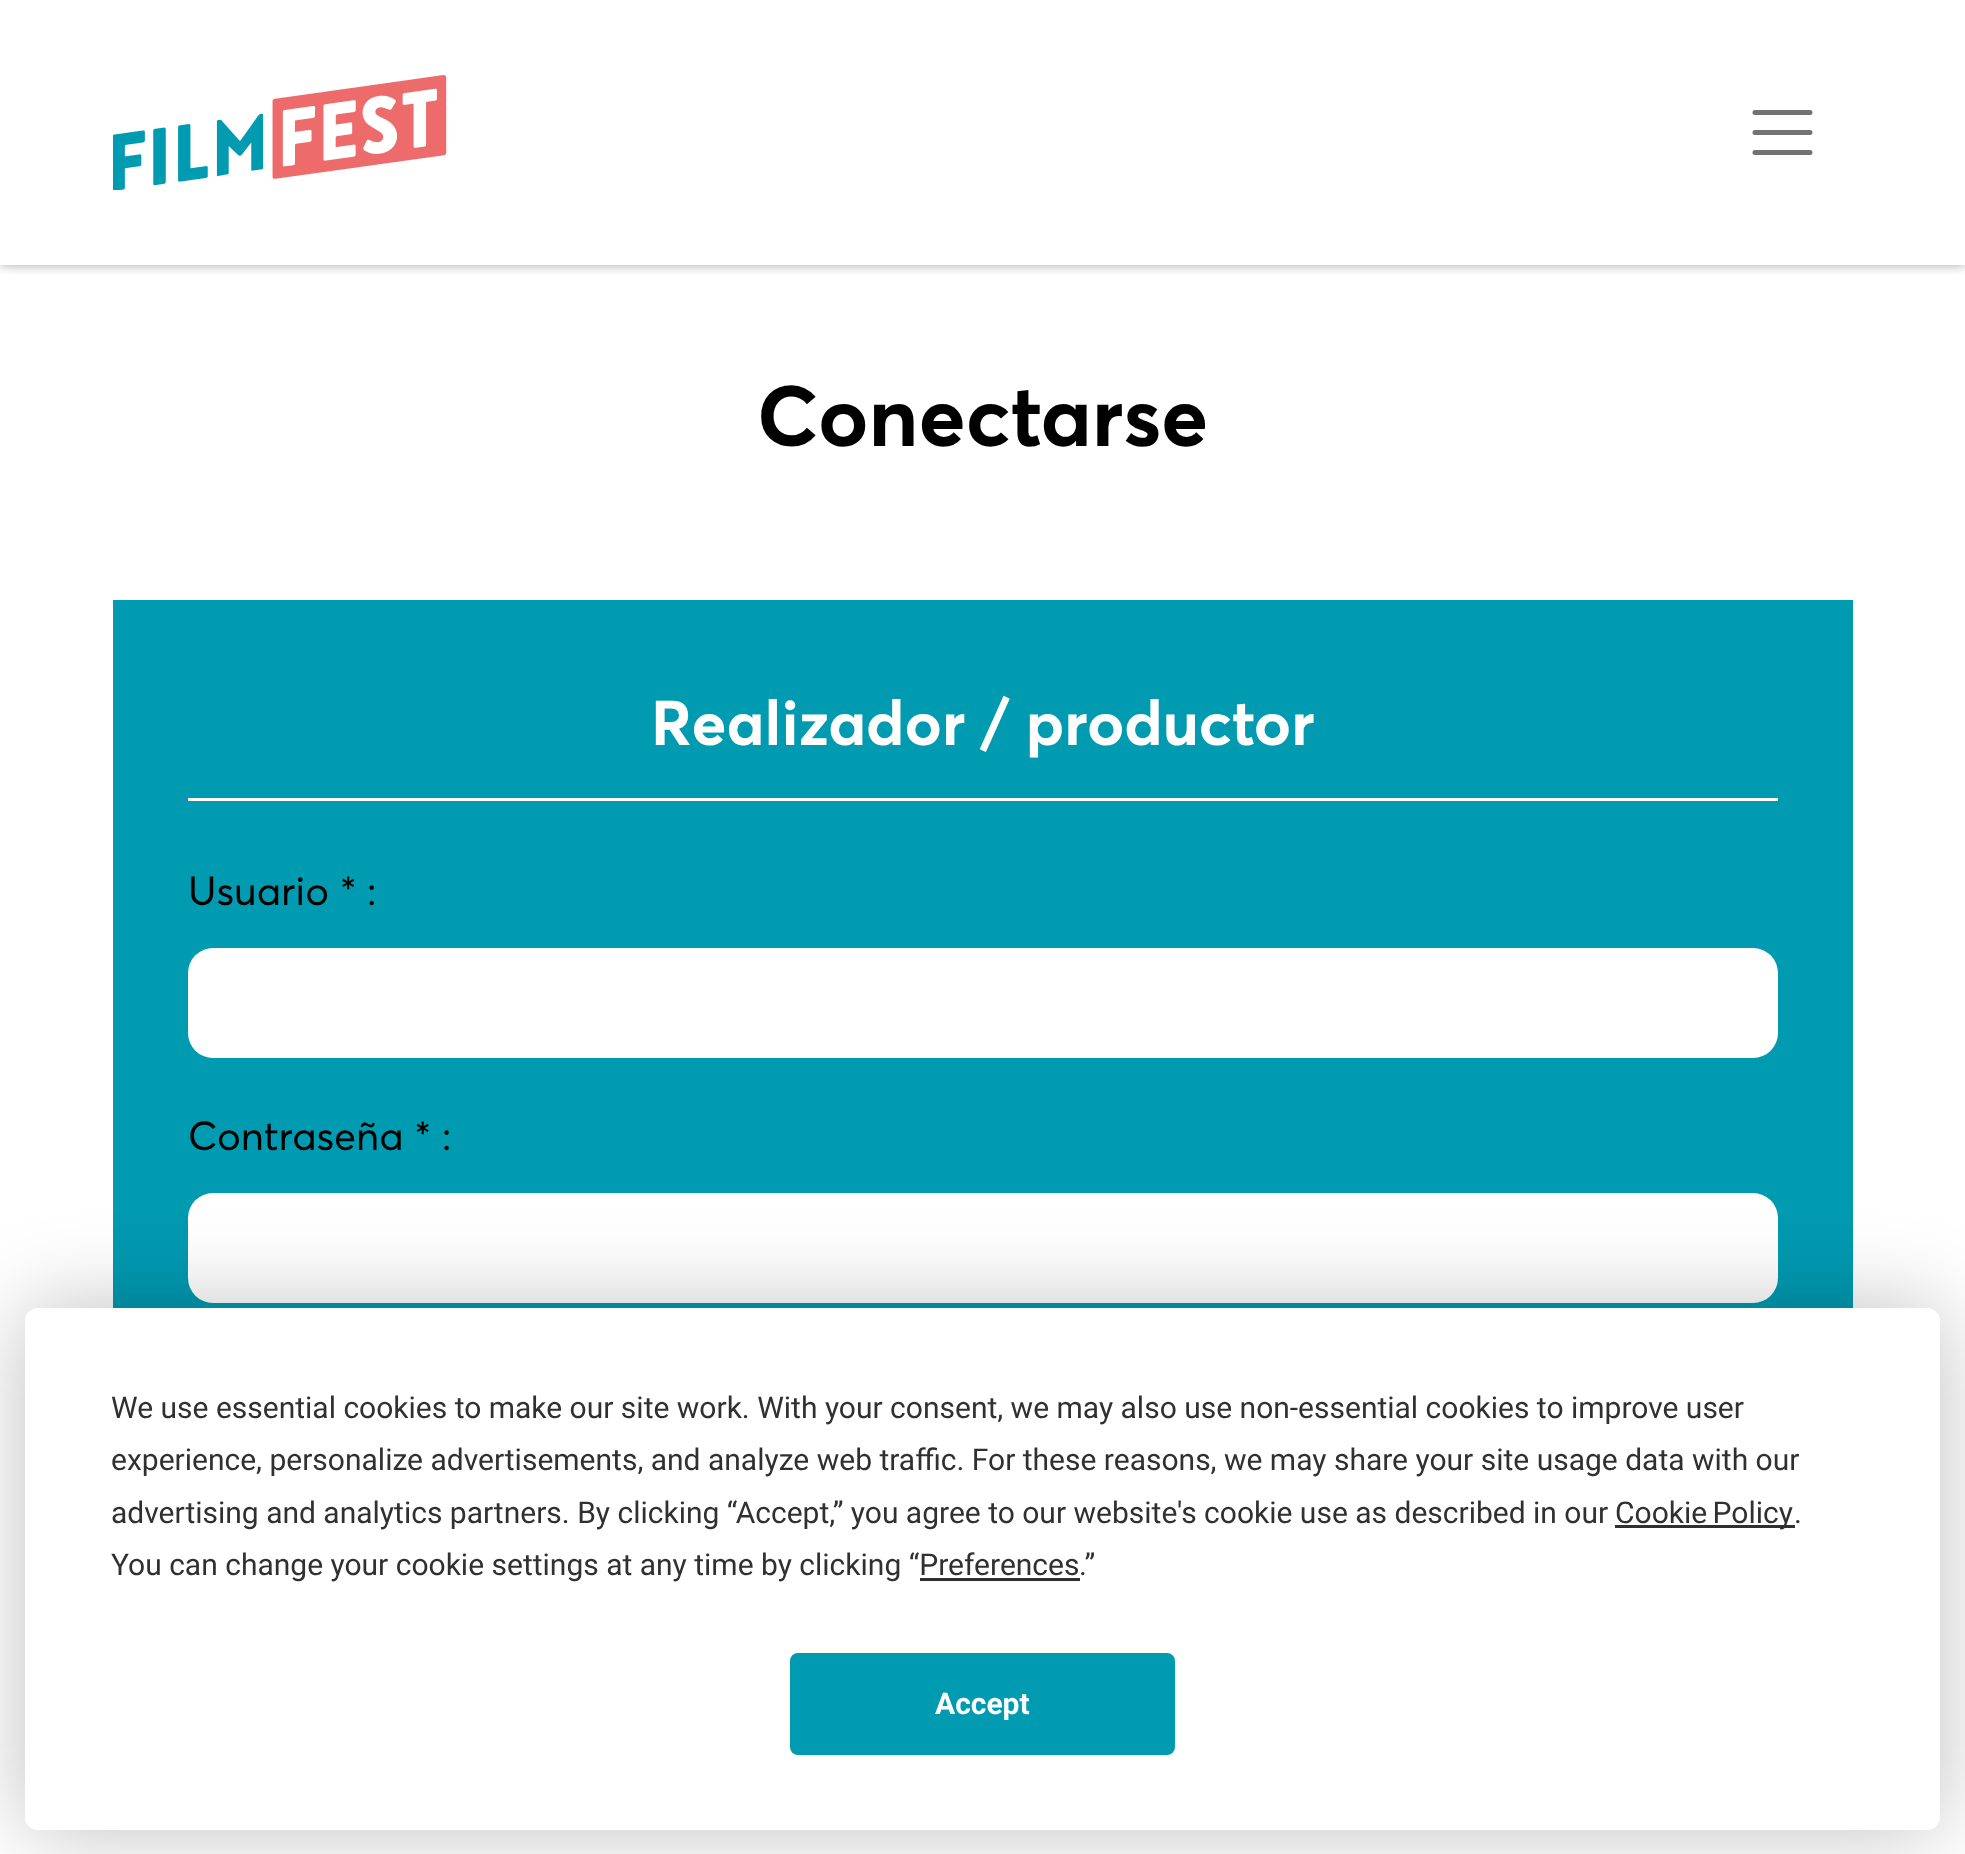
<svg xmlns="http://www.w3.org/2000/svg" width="1965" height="1854">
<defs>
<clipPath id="clip1"><rect x="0" y="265" width="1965" height="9"/></clipPath>
</defs>
<rect width="100%" height="100%" fill="#fff"/>
<g clip-path="url(#clip1)">
<rect width="1965" height="265" fill="#00000059" filter="blur(6px)"/>
</g>
<image x="113" y="75" width="334" height="115" href="media/1.png"/>
<path d="M1755 112.5h55m-55 20h55m-55 20h55" fill="none" stroke="#737373" stroke-width="5" stroke-linecap="round"/>
<text x="757" y="446" style="font-family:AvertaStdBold;font-size:84.5px;font-weight:bold;fill:#000">Conectarse</text>
<rect x="113" y="600" width="1740" height="708" fill="#009ab1"/>
<rect x="188" y="798" width="1590" height="3" fill="#fff"/>
<text x="651" y="745" style="font-family:AvertaStdBold;font-size:62.5px;font-weight:bold;fill:#fff">Realizador / productor</text>
<text x="188" y="905" style="font-family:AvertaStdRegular;font-size:40px;fill:#000">Usuario *</text>
<text x="367" y="905" style="font-family:AvertaStdRegular;font-size:40px;fill:#000">:</text>
<rect x="188" y="948" width="1590" height="110" rx="25" fill="#fff"/>
<text x="188" y="1150" style="font-family:AvertaStdRegular;font-size:40px;fill:#000">Contraseña *</text>
<text x="442" y="1150" style="font-family:AvertaStdRegular;font-size:40px;fill:#000">:</text>
<rect x="188" y="1193" width="1590" height="110" rx="25" fill="#fff"/>
<rect x="25" y="1308" width="1915" height="522" rx="13" fill="#00000040" filter="blur(44px)"/>
<rect x="25" y="1308" width="1915" height="522" rx="13" fill="#fff"/>
<text x="111" y="1418" style="font-family:Roboto;font-size:30px;fill:#303030">We use essential cookies to make our site work. With your consent, we may also use non-essential cookies to improve user</text>
<text x="111" y="1470" style="font-family:Roboto;font-size:30px;fill:#303030">experience, personalize advertisements, and analyze web traffic. For these reasons, we may share your site usage data with our</text>
<text x="111" y="1523" style="font-family:Roboto;font-size:30px;fill:#303030">advertising and analytics partners. By clicking “Accept,” you agree to our website's cookie use as described in our</text>
<rect x="1615" y="1525" width="180" height="3" fill="#303030"/>
<text x="1615" y="1523" word-spacing="-2" style="font-family:Roboto;font-size:30px;fill:#303030">Cookie Policy</text>
<text x="1794" y="1523" style="font-family:Roboto;font-size:30px;fill:#303030">.</text>
<text x="111" y="1575" style="font-family:Roboto;font-size:30px;fill:#303030">You can change your cookie settings at any time by clicking “Preferences</text>
<text x="1079" y="1575" style="font-family:Roboto;font-size:30px;fill:#303030">.”</text>
<rect x="920" y="1578" width="160" height="3" fill="#303030"/>
<rect x="791.5" y="1654.5" width="382" height="99" rx="6.5" fill="#009ab1" stroke="#009ab1" stroke-width="3"/>
<text x="935" y="1714" style="font-family:Roboto;font-size:30px;font-weight:bold;fill:#fff">Accept</text>
</svg>
